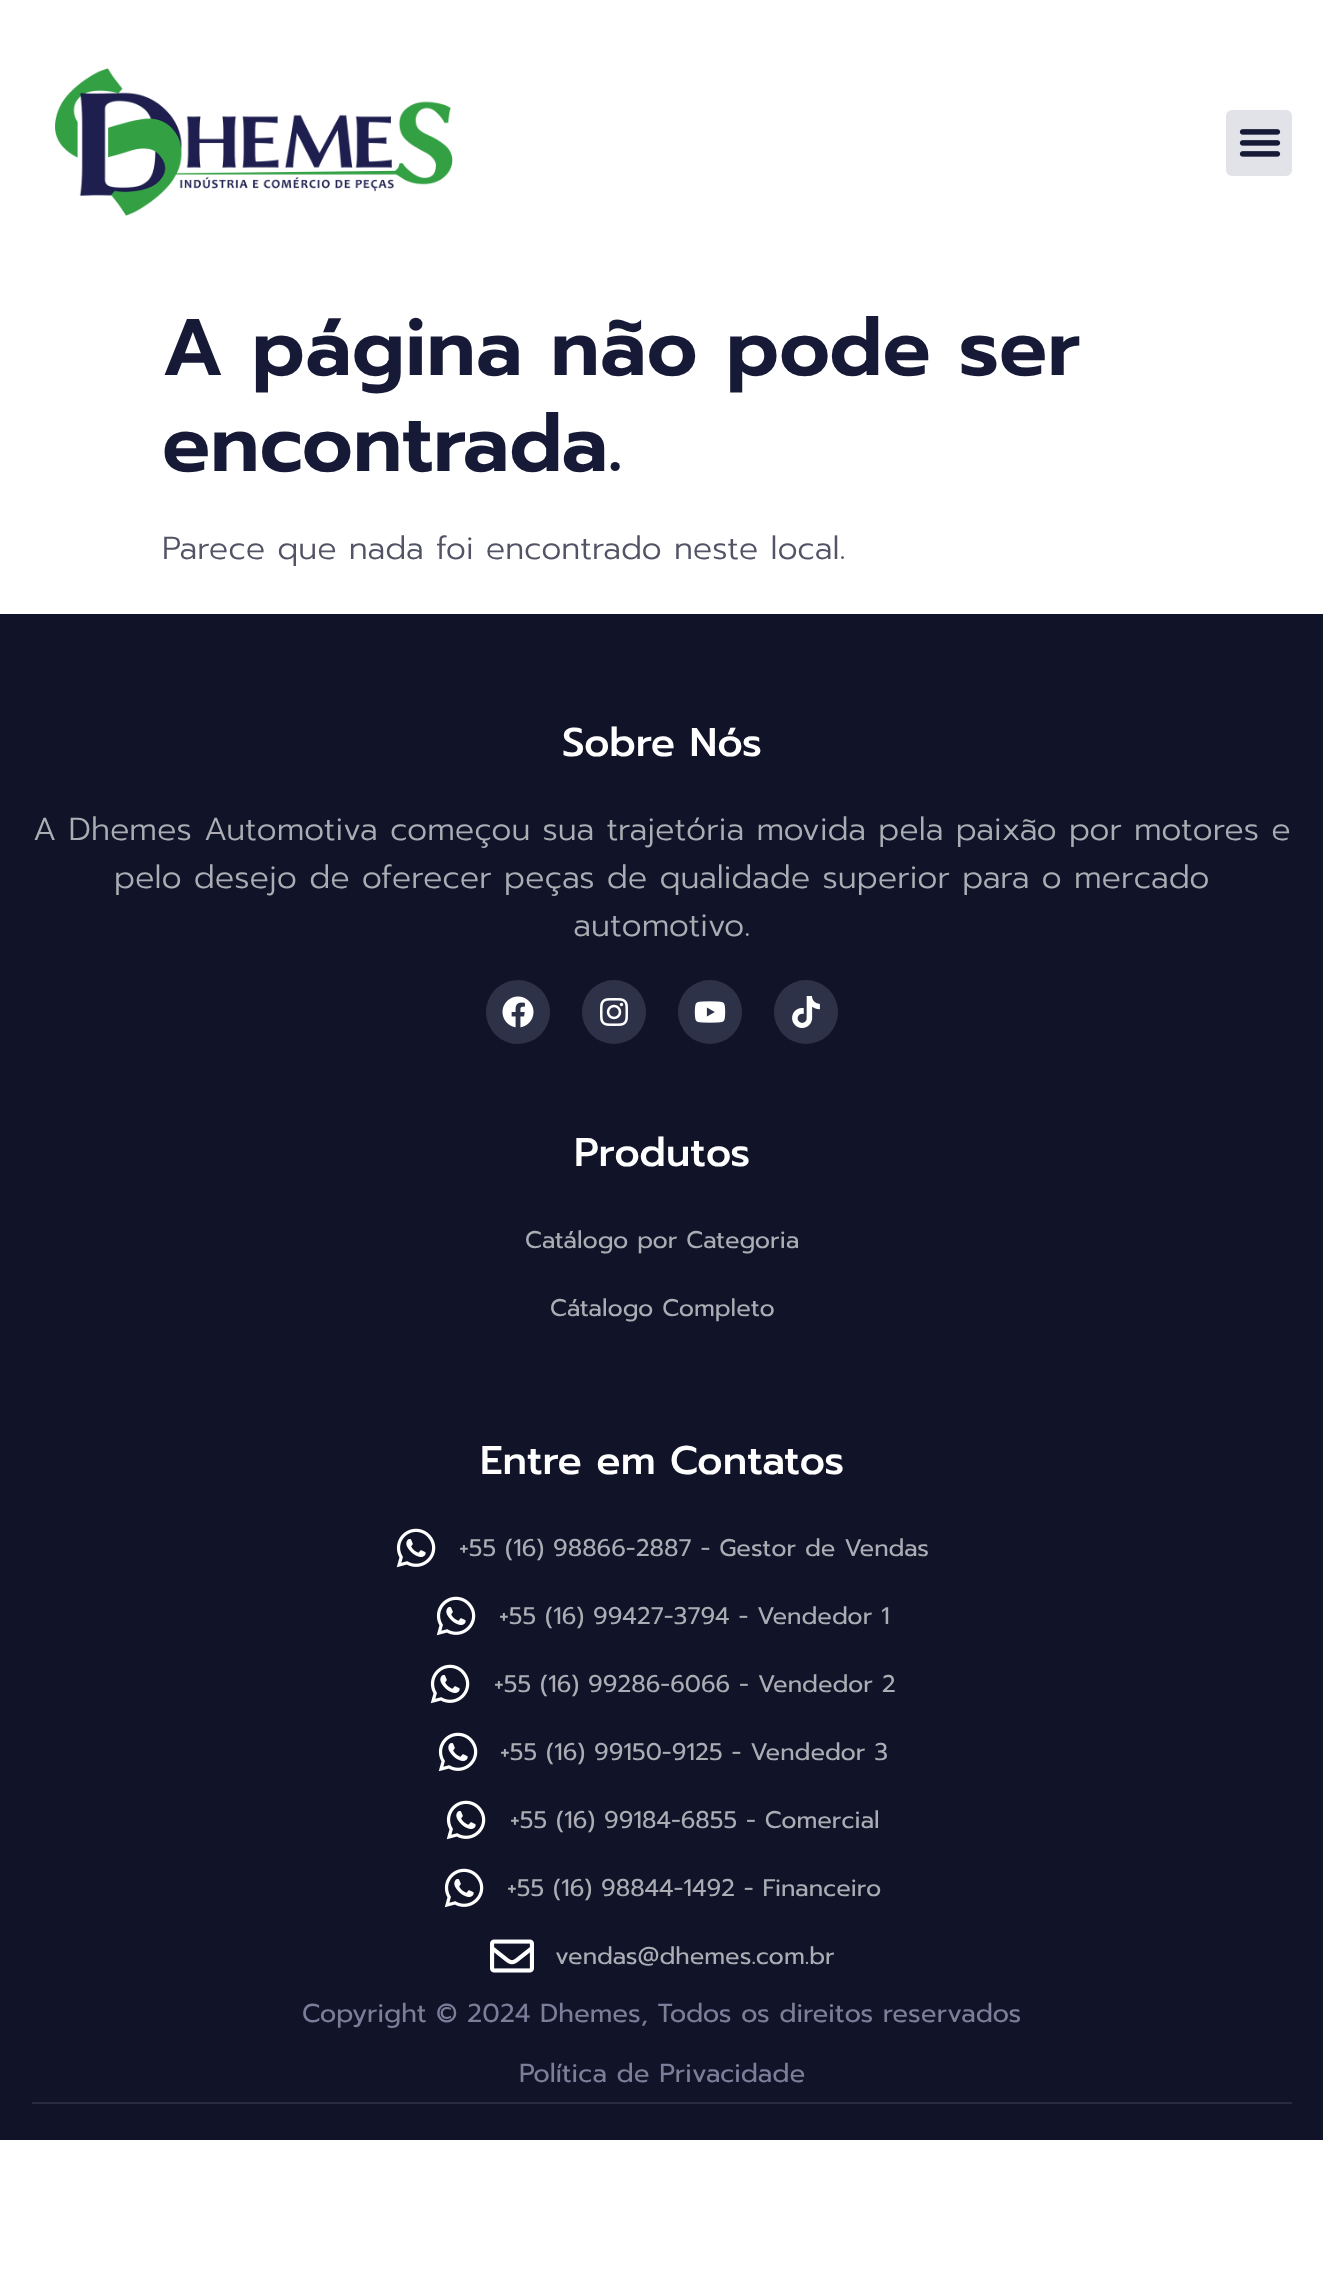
<svg xmlns="http://www.w3.org/2000/svg" width="1323" height="2285">
<rect width="100%" height="100%" fill="#fff"/>
<image x="55" y="68" width="398" height="148" href="media/1.png"/>
<rect x="1226" y="110" width="66" height="66" rx="6" fill="#e2e3e9"/>
<image x="1239" y="129" width="42" height="28" href="media/2.png"/>
<text x="162" y="375" style="font-family:Prompt;font-size:80px;font-weight:600;fill:#161a36">A página não pode ser</text>
<text x="162" y="471" style="font-family:Prompt;font-size:80px;font-weight:600;fill:#161a36">encontrada.</text>
<text x="162" y="559" style="font-family:Prompt;font-size:32px;font-weight:300;fill:#525466">Parece que nada foi encontrado neste local.</text>
<rect y="614" width="1323" height="1526" fill="#111429"/>
<text x="562" y="756" style="font-family:Prompt;font-size:40px;font-weight:500;fill:#fff">Sobre Nós</text>
<text x="33" y="840" style="font-family:Prompt;font-size:32px;font-weight:300;fill:#acadb4">A Dhemes Automotiva começou sua trajetória movida pela paixão por motores e</text>
<text x="114" y="888" style="font-family:Prompt;font-size:32px;font-weight:300;fill:#acadb4">pelo desejo de oferecer peças de qualidade superior para o mercado</text>
<text x="573" y="936" style="font-family:Prompt;font-size:32px;font-weight:300;fill:#acadb4">automotivo.</text>
<circle cx="518" cy="1012" r="32" fill="#2e3248"/>
<image x="502" y="996" width="32" height="32" href="media/3.png"/>
<circle cx="614" cy="1012" r="32" fill="#2e3248"/>
<image x="600" y="998" width="28" height="28" href="media/4.png"/>
<circle cx="710" cy="1012" r="32" fill="#2e3248"/>
<image x="694" y="1001" width="32" height="22" href="media/5.png"/>
<circle cx="806" cy="1012" r="32" fill="#2e3248"/>
<image x="792" y="996" width="28" height="32" href="media/6.png"/>
<text x="574" y="1166" style="font-family:Prompt;font-size:40px;font-weight:500;fill:#fff">Produtos</text>
<text x="525" y="1248" style="font-family:Prompt;font-size:24px;fill:#acadb4">Catálogo por Categoria</text>
<text x="550" y="1316" style="font-family:Prompt;font-size:24px;fill:#acadb4">Cátalogo Completo</text>
<text x="480" y="1474" style="font-family:Prompt;font-size:40px;font-weight:500;fill:#fff">Entre em Contatos</text>
<image x="396" y="1528" width="40" height="40" href="media/7.png"/>
<text x="459" y="1556" style="font-family:Prompt;font-size:24px;fill:#acadb4">+55 (16) 98866-2887 - Gestor de Vendas</text>
<image x="436" y="1596" width="40" height="40" href="media/7.png"/>
<text x="499" y="1624" style="font-family:Prompt;font-size:24px;fill:#acadb4">+55 (16) 99427-3794 - Vendedor 1</text>
<image x="430" y="1664" width="40" height="40" href="media/7.png"/>
<text x="494" y="1692" style="font-family:Prompt;font-size:24px;fill:#acadb4">+55 (16) 99286-6066 - Vendedor 2</text>
<image x="438" y="1732" width="40" height="40" href="media/7.png"/>
<text x="500" y="1760" style="font-family:Prompt;font-size:24px;fill:#acadb4">+55 (16) 99150-9125 - Vendedor 3</text>
<image x="446" y="1800" width="40" height="40" href="media/7.png"/>
<text x="510" y="1828" style="font-family:Prompt;font-size:24px;fill:#acadb4">+55 (16) 99184-6855 - Comercial</text>
<image x="444" y="1868" width="40" height="40" href="media/7.png"/>
<text x="507" y="1896" style="font-family:Prompt;font-size:24px;fill:#acadb4">+55 (16) 98844-1492 - Financeiro</text>
<image x="490" y="1939" width="44" height="34" href="media/8.png"/>
<text x="555" y="1964" style="font-family:Prompt;font-size:24px;fill:#acadb4">vendas@dhemes.com.br</text>
<text x="302" y="2022" style="font-family:Prompt;font-size:26px;fill:#7a7e99">Copyright © 2024 Dhemes, Todos os direitos reservados</text>
<text x="519" y="2082" style="font-family:Prompt;font-size:26px;fill:#7a7e99">Política de Privacidade</text>
<rect x="32" y="2102" width="1260" height="2" fill="#282b42"/>
</svg>
